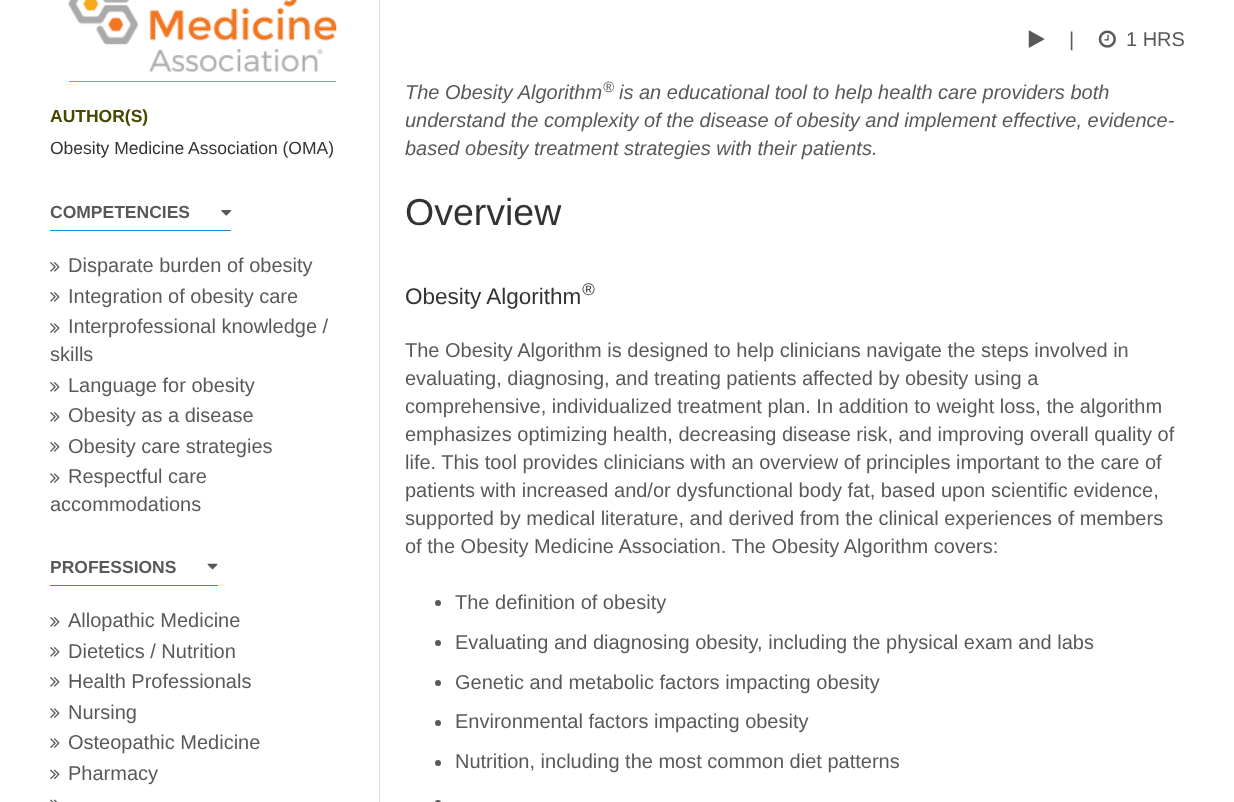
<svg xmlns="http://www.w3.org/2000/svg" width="1234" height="802">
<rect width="100%" height="100%" fill="#fff"/>
<rect x="379" width="1" height="802" fill="#dfdfdf"/>
<image x="68" y="0" width="269" height="72" href="media/1.png"/>
<rect x="69" y="81" width="267" height="1" fill="#ea881b"/>
<text x="50" y="122" style="font-family:Liberation Sans;font-size:17.5px;font-weight:bold;fill:#474700">AUTHOR(S)</text>
<text x="50" y="154" style="font-family:Liberation Sans;font-size:17.5px;fill:#333">Obesity Medicine Association (OMA)</text>
<rect x="50" y="230" width="181" height="1" fill="#0e90db"/>
<text x="50" y="218" style="font-family:Liberation Sans;font-size:17.5px;font-weight:bold;fill:#595958">COMPETENCIES</text>
<image x="221" y="210" width="11" height="6" href="media/2.png"/>
<image x="50" y="262" width="10" height="10" href="media/3.png"/>
<text x="68" y="272" style="font-family:Liberation Sans;font-size:20px;fill:#595958">Disparate burden of obesity</text>
<image x="50" y="292" width="10" height="10" href="media/3.png"/>
<text x="68" y="303" style="font-family:Liberation Sans;font-size:20px;fill:#595958">Integration of obesity care</text>
<image x="50" y="323" width="10" height="10" href="media/4.png"/>
<text x="68" y="333" style="font-family:Liberation Sans;font-size:20px;fill:#595958">Interprofessional knowledge /</text>
<text x="50" y="361" style="font-family:Liberation Sans;font-size:20px;fill:#595958">skills</text>
<image x="50" y="382" width="10" height="10" href="media/3.png"/>
<text x="68" y="392" style="font-family:Liberation Sans;font-size:20px;fill:#595958">Language for obesity</text>
<image x="50" y="412" width="10" height="10" href="media/3.png"/>
<text x="68" y="422" style="font-family:Liberation Sans;font-size:20px;fill:#595958">Obesity as a disease</text>
<image x="50" y="442" width="10" height="10" href="media/3.png"/>
<text x="68" y="453" style="font-family:Liberation Sans;font-size:20px;fill:#595958">Obesity care strategies</text>
<image x="50" y="473" width="10" height="10" href="media/4.png"/>
<text x="68" y="483" style="font-family:Liberation Sans;font-size:20px;fill:#595958">Respectful care</text>
<text x="50" y="511" style="font-family:Liberation Sans;font-size:20px;fill:#595958">accommodations</text>
<rect x="50" y="585" width="168" height="1" fill="#0e90db"/>
<text x="50" y="573" style="font-family:Liberation Sans;font-size:17.5px;font-weight:bold;fill:#595958">PROFESSIONS</text>
<image x="207" y="563" width="11" height="7" href="media/5.png"/>
<image x="50" y="617" width="10" height="10" href="media/3.png"/>
<text x="68" y="627" style="font-family:Liberation Sans;font-size:20px;fill:#595958">Allopathic Medicine</text>
<image x="50" y="647" width="10" height="10" href="media/3.png"/>
<text x="68" y="658" style="font-family:Liberation Sans;font-size:20px;fill:#595958">Dietetics / Nutrition</text>
<image x="50" y="677" width="10" height="10" href="media/3.png"/>
<text x="68" y="688" style="font-family:Liberation Sans;font-size:20px;fill:#595958">Health Professionals</text>
<image x="50" y="708" width="10" height="10" href="media/4.png"/>
<text x="68" y="719" style="font-family:Liberation Sans;font-size:20px;fill:#595958">Nursing</text>
<image x="50" y="738" width="10" height="10" href="media/4.png"/>
<text x="68" y="749" style="font-family:Liberation Sans;font-size:20px;fill:#595958">Osteopathic Medicine</text>
<image x="50" y="769" width="10" height="11" href="media/6.png"/>
<text x="68" y="780" style="font-family:Liberation Sans;font-size:20px;fill:#595958">Pharmacy</text>
<image x="50" y="799" width="8" height="3" href="media/7.png"/>
<image x="1028" y="30" width="17" height="18" href="media/8.png"/>
<text x="1069" y="46" style="font-family:Liberation Sans;font-size:20px;fill:#595958">|</text>
<image x="1098" y="30" width="18" height="18" href="media/9.png"/>
<text x="1126" y="46" style="font-family:Liberation Sans;font-size:20px;fill:#595958">1 HRS</text>
<text x="405" y="99" style="font-family:Liberation Sans;font-size:20px;font-style:italic;fill:#595958">The Obesity Algorithm</text>
<text x="603" y="92" style="font-family:Liberation Sans;font-size:15px;font-style:italic;fill:#595958">®</text>
<text x="619" y="99" style="font-family:Liberation Sans;font-size:20px;font-style:italic;fill:#595958">is an educational tool to help health care providers both</text>
<text x="405" y="127" style="font-family:Liberation Sans;font-size:20px;font-style:italic;fill:#595958">understand the complexity of the disease of obesity and implement effective, evidence-</text>
<text x="405" y="155" style="font-family:Liberation Sans;font-size:20px;font-style:italic;fill:#595958">based obesity treatment strategies with their patients.</text>
<text x="405" y="225" style="font-family:Liberation Sans;font-size:37.5px;fill:#333">Overview</text>
<text x="405" y="304" style="font-family:Liberation Sans;font-size:22.5px;fill:#333">Obesity Algorithm</text>
<text x="582" y="295" style="font-family:Liberation Sans;font-size:17px;font-style:italic;fill:#333">®</text>
<text x="405" y="357" style="font-family:Liberation Sans;font-size:20px;fill:#595958">The Obesity Algorithm is designed to help clinicians navigate the steps involved in</text>
<text x="405" y="385" style="font-family:Liberation Sans;font-size:20px;fill:#595958">evaluating, diagnosing, and treating patients affected by obesity using a</text>
<text x="405" y="413" style="font-family:Liberation Sans;font-size:20px;fill:#595958">comprehensive, individualized treatment plan. In addition to weight loss, the algorithm</text>
<text x="405" y="441" style="font-family:Liberation Sans;font-size:20px;fill:#595958">emphasizes optimizing health, decreasing disease risk, and improving overall quality of</text>
<text x="405" y="469" style="font-family:Liberation Sans;font-size:20px;fill:#595958">life. This tool provides clinicians with an overview of principles important to the care of</text>
<text x="405" y="497" style="font-family:Liberation Sans;font-size:20px;fill:#595958">patients with increased and/or dysfunctional body fat, based upon scientific evidence,</text>
<text x="405" y="525" style="font-family:Liberation Sans;font-size:20px;fill:#595958">supported by medical literature, and derived from the clinical experiences of members</text>
<text x="405" y="553" style="font-family:Liberation Sans;font-size:20px;fill:#595958">of the Obesity Medicine Association. The Obesity Algorithm covers:</text>
<circle cx="438" cy="603" r="3" fill="#595958"/>
<text x="455" y="609" style="font-family:Liberation Sans;font-size:20px;fill:#595958">The definition of obesity</text>
<circle cx="438" cy="643" r="3" fill="#595958"/>
<text x="455" y="649" style="font-family:Liberation Sans;font-size:20px;fill:#595958">Evaluating and diagnosing obesity, including the physical exam and labs</text>
<circle cx="438" cy="683" r="3" fill="#595958"/>
<text x="455" y="689" style="font-family:Liberation Sans;font-size:20px;fill:#595958">Genetic and metabolic factors impacting obesity</text>
<circle cx="438" cy="723" r="3" fill="#595958"/>
<text x="455" y="728" style="font-family:Liberation Sans;font-size:20px;fill:#595958">Environmental factors impacting obesity</text>
<circle cx="438" cy="763" r="3" fill="#595958"/>
<text x="455" y="768" style="font-family:Liberation Sans;font-size:20px;fill:#595958">Nutrition, including the most common diet patterns</text>
<rect x="435" y="800" width="6" height="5" rx="3" fill="#595958"/>
</svg>
